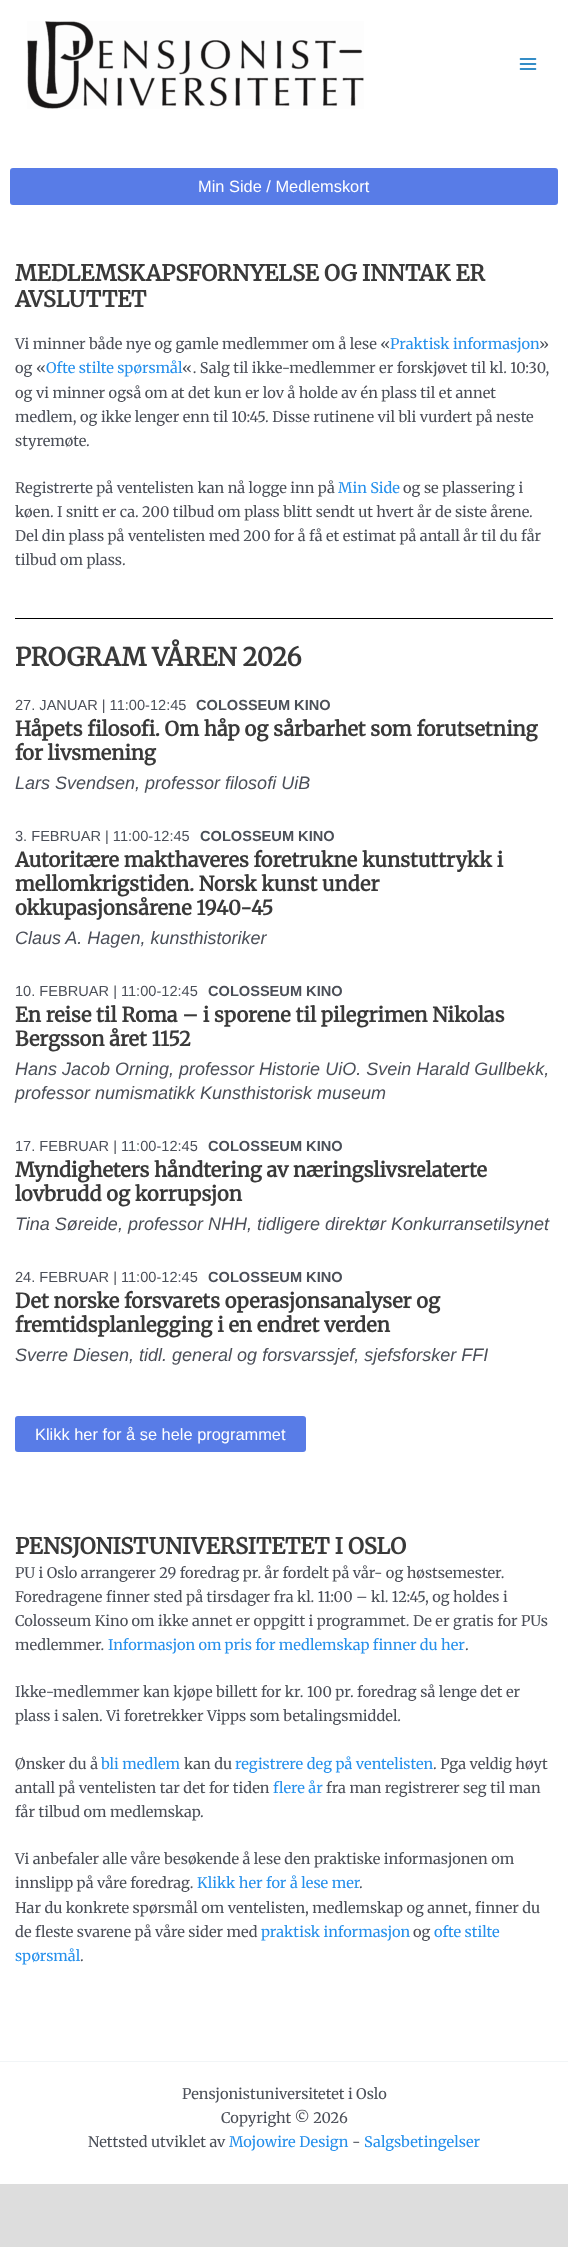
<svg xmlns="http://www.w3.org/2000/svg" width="568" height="2247">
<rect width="100%" height="100%" fill="#ddd"/>
<rect width="568" height="2061" fill="#fff"/>
<image x="27" y="21" width="337" height="88" href="media/1.png"/>
<image x="519" y="58" width="18" height="12" href="media/2.png"/>
<rect x="10" y="168" width="548" height="37" rx="3" fill="#587ce7"/>
<text x="198" y="192" style="font-family:Liberation Sans;font-size:16.4px;fill:#fff">Min Side / Medlemskort</text>
<text x="15" y="281" style="font-family:Merriweather;font-size:22px;font-weight:bold;fill:#3a3a3a">MEDLEMSKAPSFORNYELSE OG INNTAK ER</text>
<text x="15" y="307" style="font-family:Merriweather;font-size:22px;font-weight:bold;fill:#3a3a3a">AVSLUTTET</text>
<text x="15" y="349" style="font-family:Merriweather;font-size:14.6px;font-weight:300;fill:#4b4f58">Vi minner både nye og gamle medlemmer om å lese «</text>
<text x="390" y="349" style="font-family:Merriweather;font-size:14.6px;font-weight:300;fill:#2590ec">Praktisk informasjon</text>
<text x="539" y="349" style="font-family:Merriweather;font-size:14.6px;font-weight:300;fill:#4b4f58">»</text>
<text x="15" y="373" style="font-family:Merriweather;font-size:14.6px;font-weight:300;fill:#4b4f58">og «</text>
<text x="46" y="373" style="font-family:Merriweather;font-size:14.6px;font-weight:300;fill:#2590ec">Ofte stilte spørsmål</text>
<text x="182" y="373" style="font-family:Merriweather;font-size:14.6px;font-weight:300;fill:#4b4f58">«. Salg til ikke-medlemmer er forskjøvet til kl. 10:30,</text>
<text x="15" y="398" style="font-family:Merriweather;font-size:14.6px;font-weight:300;fill:#4b4f58">og vi minner også om at det kun er lov å holde av én plass til et annet</text>
<text x="15" y="422" style="font-family:Merriweather;font-size:14.6px;font-weight:300;fill:#4b4f58">medlem, og ikke lenger enn til 10:45. Disse rutinene vil bli vurdert på neste</text>
<text x="15" y="446" style="font-family:Merriweather;font-size:14.6px;font-weight:300;fill:#4b4f58">styremøte.</text>
<text x="15" y="493" style="font-family:Merriweather;font-size:14.6px;font-weight:300;fill:#4b4f58">Registrerte på ventelisten kan nå logge inn på</text>
<text x="338" y="493" style="font-family:Merriweather;font-size:14.6px;font-weight:300;fill:#2590ec">Min Side</text>
<text x="403" y="493" style="font-family:Merriweather;font-size:14.6px;font-weight:300;fill:#4b4f58">og se plassering i</text>
<text x="15" y="517" style="font-family:Merriweather;font-size:14.6px;font-weight:300;fill:#4b4f58">køen. I snitt er ca. 200 tilbud om plass blitt sendt ut hvert år de siste årene.</text>
<text x="15" y="541" style="font-family:Merriweather;font-size:14.6px;font-weight:300;fill:#4b4f58">Del din plass på ventelisten med 200 for å få et estimat på antall år til du får</text>
<text x="15" y="565" style="font-family:Merriweather;font-size:14.6px;font-weight:300;fill:#4b4f58">tilbud om plass.</text>
<rect x="15" y="618" width="538" height="1" fill="#000"/>
<text x="15" y="666" style="font-family:Merriweather;font-size:25px;font-weight:bold;fill:#3a3a3a">PROGRAM VÅREN 2026</text>
<text x="15" y="710" style="font-family:Liberation Sans;font-size:14.6px;fill:#4b4f58">27. JANUAR | 11:00-12:45</text>
<text x="196" y="710" style="font-family:Liberation Sans;font-size:14.6px;font-weight:bold;fill:#4b4f58">COLOSSEUM KINO</text>
<text x="15" y="736" style="font-family:Merriweather;font-size:20px;font-weight:bold;fill:#3a3a3a">Håpets filosofi. Om håp og sårbarhet som forutsetning</text>
<text x="15" y="760" style="font-family:Merriweather;font-size:20px;font-weight:bold;fill:#3a3a3a">for livsmening</text>
<text x="15" y="789" style="font-family:Liberation Sans;font-size:18px;font-style:italic;fill:#4b4f58">Lars Svendsen, professor filosofi UiB</text>
<text x="15" y="841" style="font-family:Liberation Sans;font-size:14.6px;fill:#4b4f58">3. FEBRUAR | 11:00-12:45</text>
<text x="200" y="841" style="font-family:Liberation Sans;font-size:14.6px;font-weight:bold;fill:#4b4f58">COLOSSEUM KINO</text>
<text x="15" y="867" style="font-family:Merriweather;font-size:20px;font-weight:bold;fill:#3a3a3a">Autoritære makthaveres foretrukne kunstuttrykk i</text>
<text x="15" y="891" style="font-family:Merriweather;font-size:20px;font-weight:bold;fill:#3a3a3a">mellomkrigstiden. Norsk kunst under</text>
<text x="15" y="915" style="font-family:Merriweather;font-size:20px;font-weight:bold;fill:#3a3a3a">okkupasjonsårene 1940-45</text>
<text x="15" y="944" style="font-family:Liberation Sans;font-size:18px;font-style:italic;fill:#4b4f58">Claus A. Hagen, kunsthistoriker</text>
<text x="15" y="996" style="font-family:Liberation Sans;font-size:14.6px;fill:#4b4f58">10. FEBRUAR | 11:00-12:45</text>
<text x="208" y="996" style="font-family:Liberation Sans;font-size:14.6px;font-weight:bold;fill:#4b4f58">COLOSSEUM KINO</text>
<text x="15" y="1022" style="font-family:Merriweather;font-size:20px;font-weight:bold;fill:#3a3a3a">En reise til Roma – i sporene til pilegrimen Nikolas</text>
<text x="15" y="1046" style="font-family:Merriweather;font-size:20px;font-weight:bold;fill:#3a3a3a">Bergsson året 1152</text>
<text x="15" y="1075" style="font-family:Liberation Sans;font-size:18px;font-style:italic;fill:#4b4f58">Hans Jacob Orning, professor Historie UiO. Svein Harald Gullbekk,</text>
<text x="15" y="1099" style="font-family:Liberation Sans;font-size:18px;font-style:italic;fill:#4b4f58">professor numismatikk Kunsthistorisk museum</text>
<text x="15" y="1151" style="font-family:Liberation Sans;font-size:14.6px;fill:#4b4f58">17. FEBRUAR | 11:00-12:45</text>
<text x="208" y="1151" style="font-family:Liberation Sans;font-size:14.6px;font-weight:bold;fill:#4b4f58">COLOSSEUM KINO</text>
<text x="15" y="1177" style="font-family:Merriweather;font-size:20px;font-weight:bold;fill:#3a3a3a">Myndigheters håndtering av næringslivsrelaterte</text>
<text x="15" y="1201" style="font-family:Merriweather;font-size:20px;font-weight:bold;fill:#3a3a3a">lovbrudd og korrupsjon</text>
<text x="15" y="1230" style="font-family:Liberation Sans;font-size:18px;font-style:italic;fill:#4b4f58">Tina Søreide, professor NHH, tidligere direktør Konkurransetilsynet</text>
<text x="15" y="1282" style="font-family:Liberation Sans;font-size:14.6px;fill:#4b4f58">24. FEBRUAR | 11:00-12:45</text>
<text x="208" y="1282" style="font-family:Liberation Sans;font-size:14.6px;font-weight:bold;fill:#4b4f58">COLOSSEUM KINO</text>
<text x="15" y="1308" style="font-family:Merriweather;font-size:20px;font-weight:bold;fill:#3a3a3a">Det norske forsvarets operasjonsanalyser og</text>
<text x="15" y="1332" style="font-family:Merriweather;font-size:20px;font-weight:bold;fill:#3a3a3a">fremtidsplanlegging i en endret verden</text>
<text x="15" y="1361" style="font-family:Liberation Sans;font-size:18px;font-style:italic;fill:#4b4f58">Sverre Diesen, tidl. general og forsvarssjef, sjefsforsker FFI</text>
<rect x="15" y="1416" width="291" height="36" rx="3" fill="#587ce7"/>
<text x="35" y="1440" style="font-family:Liberation Sans;font-size:16.4px;fill:#fff">Klikk her for å se hele programmet</text>
<text x="15" y="1554" style="font-family:Merriweather;font-size:22px;font-weight:bold;fill:#3a3a3a">PENSJONISTUNIVERSITETET I OSLO</text>
<text x="15" y="1578" style="font-family:Merriweather;font-size:14.6px;font-weight:300;fill:#4b4f58">PU i Oslo arrangerer 29 foredrag pr. år fordelt på vår- og høstsemester.</text>
<text x="15" y="1602" style="font-family:Merriweather;font-size:14.6px;font-weight:300;fill:#4b4f58">Foredragene finner sted på tirsdager fra kl. 11:00 – kl. 12:45, og holdes i</text>
<text x="15" y="1626" style="font-family:Merriweather;font-size:14.6px;font-weight:300;fill:#4b4f58">Colosseum Kino om ikke annet er oppgitt i programmet. De er gratis for PUs</text>
<text x="15" y="1650" style="font-family:Merriweather;font-size:14.6px;font-weight:300;fill:#4b4f58">medlemmer.</text>
<text x="108" y="1650" word-spacing="-0.25" style="font-family:Merriweather;font-size:14.6px;font-weight:300;fill:#2590ec">Informasjon om pris for medlemskap finner du her</text>
<text x="465" y="1650" style="font-family:Merriweather;font-size:14.6px;font-weight:300;fill:#4b4f58">.</text>
<text x="15" y="1697" style="font-family:Merriweather;font-size:14.6px;font-weight:300;fill:#4b4f58">Ikke-medlemmer kan kjøpe billett for kr. 100 pr. foredrag så lenge det er</text>
<text x="15" y="1721" style="font-family:Merriweather;font-size:14.6px;font-weight:300;fill:#4b4f58">plass i salen. Vi foretrekker Vipps som betalingsmiddel.</text>
<text x="15" y="1769" style="font-family:Merriweather;font-size:14.6px;font-weight:300;fill:#4b4f58">Ønsker du å</text>
<text x="101" y="1769" style="font-family:Merriweather;font-size:14.6px;font-weight:300;fill:#2590ec">bli medlem</text>
<text x="184" y="1769" style="font-family:Merriweather;font-size:14.6px;font-weight:300;fill:#4b4f58">kan du</text>
<text x="235" y="1769" style="font-family:Merriweather;font-size:14.6px;font-weight:300;fill:#2590ec">registrere deg på ventelisten</text>
<text x="433" y="1769" style="font-family:Merriweather;font-size:14.6px;font-weight:300;fill:#4b4f58">. Pga veldig høyt</text>
<text x="15" y="1793" style="font-family:Merriweather;font-size:14.6px;font-weight:300;fill:#4b4f58">antall på ventelisten tar det for tiden</text>
<text x="273" y="1793" style="font-family:Merriweather;font-size:14.6px;font-weight:300;fill:#2590ec">flere år</text>
<text x="326" y="1793" style="font-family:Merriweather;font-size:14.6px;font-weight:300;fill:#4b4f58">fra man registrerer seg til man</text>
<text x="15" y="1817" style="font-family:Merriweather;font-size:14.6px;font-weight:300;fill:#4b4f58">får tilbud om medlemskap.</text>
<text x="15" y="1864" style="font-family:Merriweather;font-size:14.6px;font-weight:300;fill:#4b4f58">Vi anbefaler alle våre besøkende å lese den praktiske informasjonen om</text>
<text x="15" y="1888" style="font-family:Merriweather;font-size:14.6px;font-weight:300;fill:#4b4f58">innslipp på våre foredrag.</text>
<text x="197" y="1888" style="font-family:Merriweather;font-size:14.6px;font-weight:300;fill:#2590ec">Klikk her for å lese mer</text>
<text x="359" y="1888" style="font-family:Merriweather;font-size:14.6px;font-weight:300;fill:#4b4f58">.</text>
<text x="15" y="1913" style="font-family:Merriweather;font-size:14.6px;font-weight:300;fill:#4b4f58">Har du konkrete spørsmål om ventelisten, medlemskap og annet, finner du</text>
<text x="15" y="1937" style="font-family:Merriweather;font-size:14.6px;font-weight:300;fill:#4b4f58">de fleste svarene på våre sider med</text>
<text x="261" y="1937" style="font-family:Merriweather;font-size:14.6px;font-weight:300;fill:#2590ec">praktisk informasjon</text>
<text x="413" y="1937" style="font-family:Merriweather;font-size:14.6px;font-weight:300;fill:#4b4f58">og</text>
<text x="434" y="1937" style="font-family:Merriweather;font-size:14.6px;font-weight:300;fill:#2590ec">ofte stilte</text>
<text x="15" y="1961" style="font-family:Merriweather;font-size:14.6px;font-weight:300;fill:#2590ec">spørsmål</text>
<text x="80" y="1961" style="font-family:Merriweather;font-size:14.6px;font-weight:300;fill:#4b4f58">.</text>
<rect y="2062" width="568" height="122" fill="#fff"/>
<rect y="2061" width="568" height="1" fill="#f2f5f7"/>
<text x="182" y="2099" style="font-family:Merriweather;font-size:14.6px;font-weight:300;fill:#4b4f58">Pensjonistuniversitetet i Oslo</text>
<text x="221" y="2123" style="font-family:Merriweather;font-size:14.6px;font-weight:300;fill:#4b4f58">Copyright © 2026</text>
<text x="88" y="2147" style="font-family:Merriweather;font-size:14.6px;font-weight:300;fill:#4b4f58">Nettsted utviklet av</text>
<text x="229" y="2147" style="font-family:Merriweather;font-size:14.6px;font-weight:300;fill:#2590ec">Mojowire Design</text>
<text x="352" y="2147" style="font-family:Merriweather;font-size:14.6px;font-weight:300;fill:#4b4f58">-</text>
<text x="364" y="2147" style="font-family:Merriweather;font-size:14.6px;font-weight:300;fill:#2590ec">Salgsbetingelser</text>
</svg>
